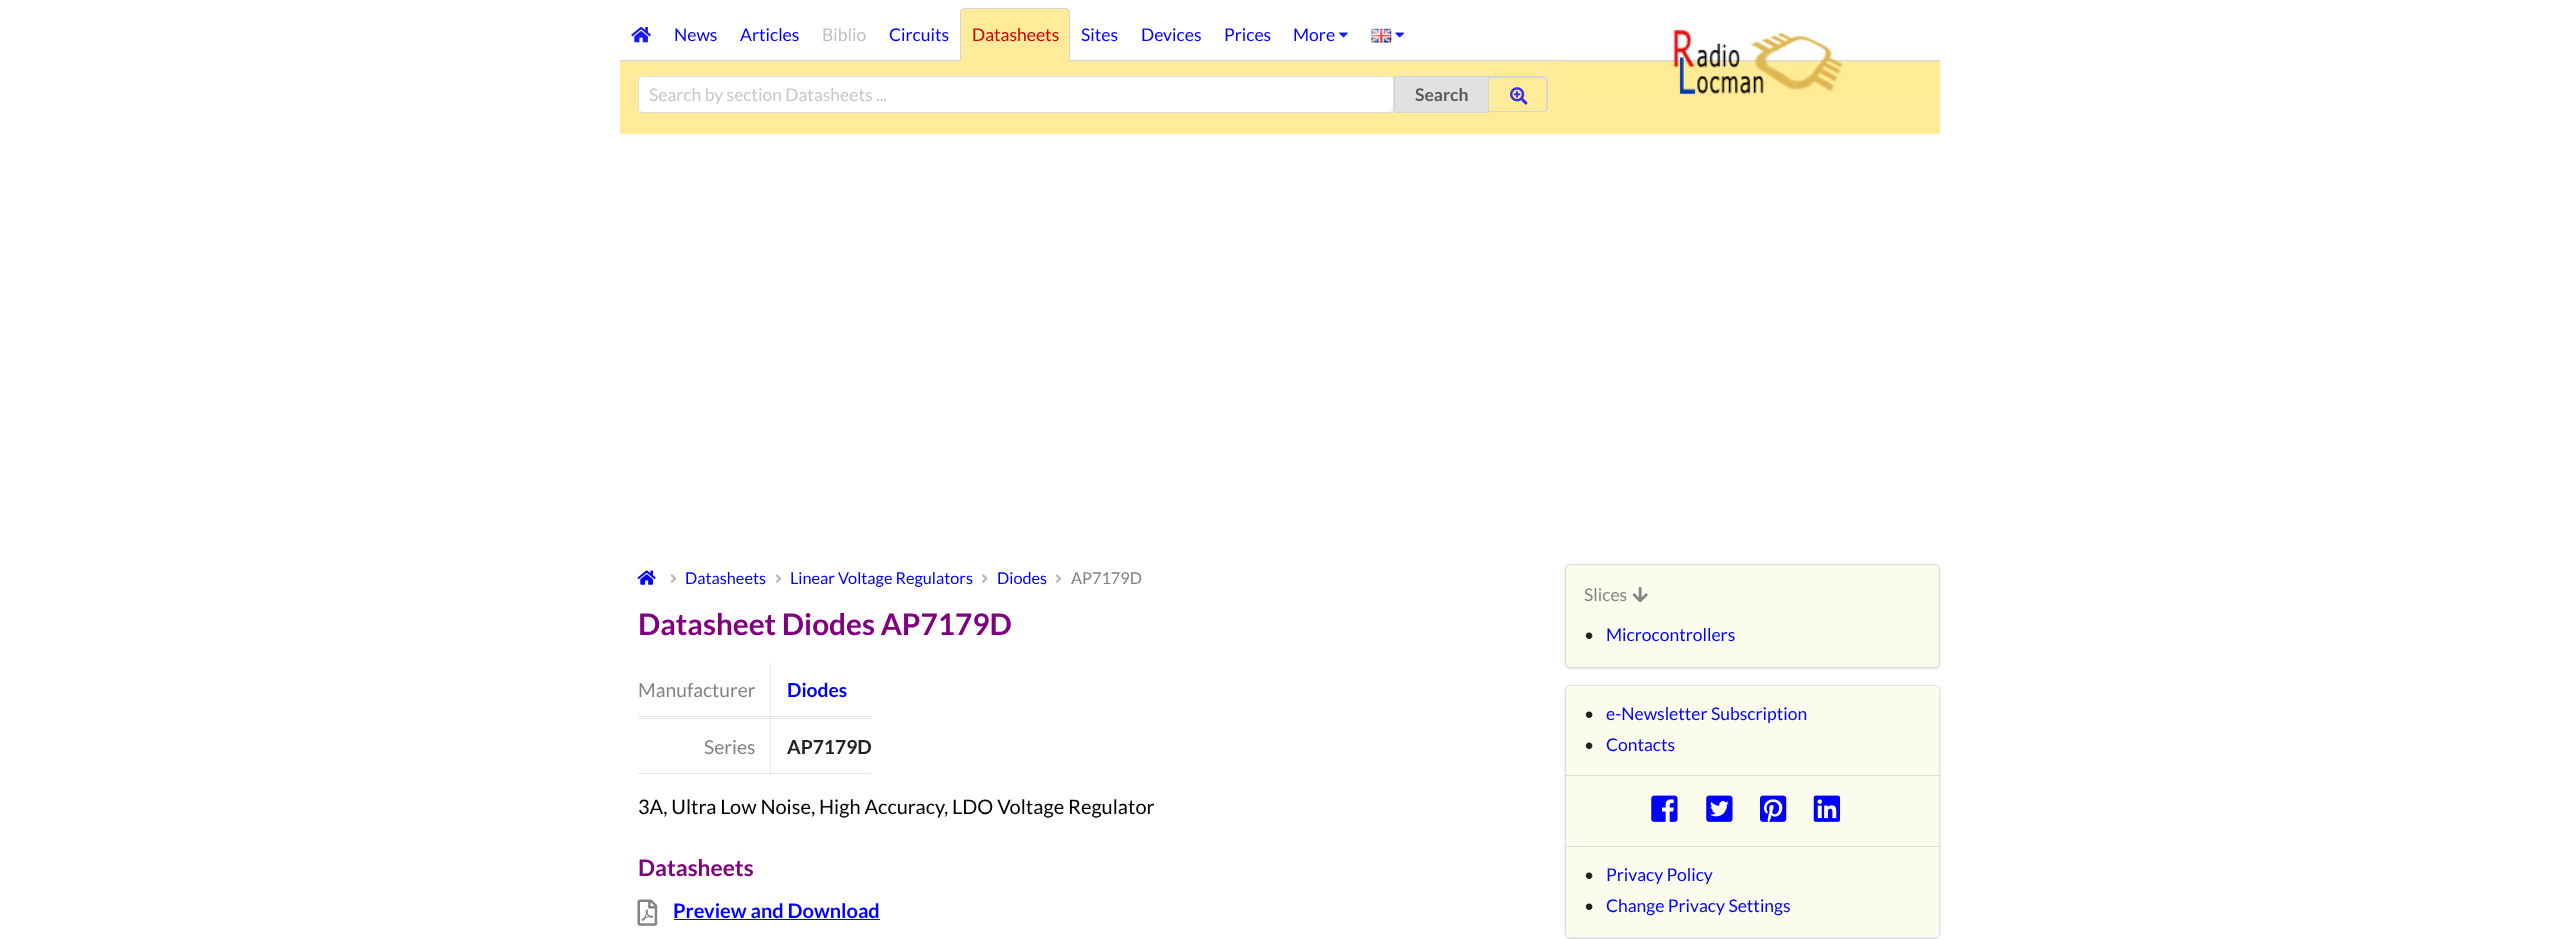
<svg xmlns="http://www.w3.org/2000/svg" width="2560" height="939">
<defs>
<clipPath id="clip1"><path d="M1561 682h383v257h-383zm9 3h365c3 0 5 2 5 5v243c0 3-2 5-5 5h-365c-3 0-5-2-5-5v-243c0-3 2-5 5-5z" clip-rule="evenodd"/></clipPath>
</defs>
<rect width="100%" height="100%" fill="#fff"/>
<rect x="770" y="663" width="1" height="55" fill="#e9e9e9"/>
<rect x="620" y="61" width="945" height="73" fill="#ffeb99"/>
<rect x="620" y="60" width="945" height="1" fill="#d4d4d5"/>
<image x="631" y="27" width="20" height="16" href="media/1.png"/>
<text x="674" y="41" style="font-family:Lato;font-size:17.5px;fill:#00f">News</text>
<text x="740" y="41" style="font-family:Lato;font-size:17.5px;fill:#00f">Articles</text>
<text x="822" y="41" style="font-family:Lato;font-size:17.5px;fill:#bfbfbf">Biblio</text>
<text x="889" y="41" style="font-family:Lato;font-size:17.5px;fill:#00f">Circuits</text>
<path d="M965 8h100c3 0 5 2 5 5v48h-110v-48c0-3 2-5 5-5z" fill="#ffeb99"/>
<path d="M965 8h100c3 0 5 2 5 4v49h-110v-49c0-2 2-4 5-4zm0 1h100c2 0 4 1 4 3v49h-108v-49c0-2 2-3 4-3z" fill="#d4d4d5" fill-rule="evenodd"/>
<text x="972" y="41" style="font-family:Lato;font-size:17.5px;fill:#c00">Datasheets</text>
<text x="1081" y="41" style="font-family:Lato;font-size:17.5px;fill:#00f">Sites</text>
<text x="1141" y="41" style="font-family:Lato;font-size:17.5px;fill:#00f">Devices</text>
<text x="1224" y="41" style="font-family:Lato;font-size:17.5px;fill:#00f">Prices</text>
<text x="1293" y="41" style="font-family:Lato;font-size:17.5px;fill:#00f">More</text>
<image x="1339" y="32" width="9" height="6" href="media/2.png"/>
<image x="1371" y="28" width="21" height="15" href="media/3.png"/>
<image x="1395" y="32" width="9" height="6" href="media/4.png"/>
<rect x="638" y="76" width="756" height="37" rx="5" fill="#fff"/>
<rect x="638.5" y="76.5" width="755" height="36" rx="4.5" fill="none" stroke="#22242626"/>
<text x="649" y="101" style="font-family:Lato;font-size:17.5px;fill:#c7c7c7">Search by section Datasheets ...</text>
<rect x="1394.5" y="76.5" width="94" height="36" fill="#e0e1e2" stroke="#d4d4d5"/>
<text x="1415" y="101" style="font-family:Lato;font-size:17.5px;font-weight:bold;fill:#5a5a5a">Search</text>
<path d="M1489 76h53c3 0 6 2 6 5v27c0 2-3 4-6 4h-53zm0 2h45c16 0 12 0 12 16c0 17 4 17-12 17h-45z" fill="#d4d4d5" fill-rule="evenodd"/>
<image x="1510" y="87" width="18" height="18" href="media/5.png"/>
<rect x="1565" y="98" width="375" height="36" fill="#ffeb99"/>
<image x="1565" y="8" width="375" height="90" href="media/6.png"/>
<image x="637" y="570" width="19" height="15" href="media/7.png"/>
<image x="670" y="574" width="7" height="9" href="media/8.png"/>
<text x="685" y="584" style="font-family:Lato;font-size:16.25px;fill:#00f">Datasheets</text>
<image x="775" y="574" width="7" height="9" href="media/8.png"/>
<text x="790" y="584" style="font-family:Lato;font-size:16.25px;fill:#00f">Linear Voltage Regulators</text>
<image x="982" y="574" width="6" height="9" href="media/9.png"/>
<text x="997" y="584" style="font-family:Lato;font-size:16.25px;fill:#00f">Diodes</text>
<image x="1055" y="574" width="7" height="9" href="media/8.png"/>
<text x="1071" y="584" style="font-family:Lato;font-size:16.25px;fill:#828282">AP7179D</text>
<text x="638" y="635" style="font-family:Lato;font-size:29.75px;font-weight:bold;fill:#800080">Datasheet Diodes AP7179D</text>
<rect x="638" y="716" width="233" height="1" fill="#e6e6e6"/>
<rect x="770" y="716" width="1" height="1" fill="#d2d3d3"/>
<text x="638" y="697" style="font-family:Lato;font-size:19.25px;fill:#828282">Manufacturer</text>
<text x="787" y="697" style="font-family:Lato;font-size:19.25px;font-weight:bold;fill:#00f">Diodes</text>
<rect x="638" y="773" width="233" height="1" fill="#e6e6e6"/>
<rect x="638" y="718" width="132" height="1" fill="#e9e9e9"/>
<text x="704" y="754" style="font-family:Lato;font-size:19.25px;fill:#828282">Series</text>
<path d="M770 718h101v1h-100z" fill="#e9e9e9"/>
<path d="M770 774v-56l1 1v55z" fill="#2224261a"/>
<text x="787" y="754" style="font-family:Lato;font-size:19.25px;font-weight:bold;fill:#212121">AP7179D</text>
<text x="638" y="814" style="font-family:Lato;font-size:20px;fill:#000">3A, Ultra Low Noise, High Accuracy, LDO Voltage Regulator</text>
<text x="638" y="876" style="font-family:Lato;font-size:22.75px;font-weight:bold;fill:#800080">Datasheets</text>
<image x="637" y="899" width="21" height="27" href="media/10.png"/>
<text x="673" y="918" style="font-family:Lato;font-size:20px;font-weight:bold;fill:#00f">Preview and Download</text>
<rect x="674" y="919" width="206" height="1" fill="#00f"/>
<rect x="1565" y="565" width="375" height="104" rx="5" fill="#22242626" filter="blur(1px)"/>
<rect x="1565" y="564" width="375" height="104" rx="5" fill="#fcfcee"/>
<rect x="1565.5" y="564.5" width="374" height="103" rx="4.5" fill="none" stroke="#22242626"/>
<text x="1584" y="601" style="font-family:Lato;font-size:17.5px;fill:#828282">Slices</text>
<image x="1632" y="587" width="16" height="16" href="media/11.png"/>
<text x="1584" y="641" style="font-family:Lato;font-size:17.5px;fill:#212121">•</text>
<text x="1606" y="641" style="font-family:Lato;font-size:17.5px;fill:#00f">Microcontrollers</text>
<g clip-path="url(#clip1)">
<rect x="1565" y="686" width="375" height="253" rx="5" fill="#22242626" filter="blur(1px)"/>
</g>
<rect x="1565.5" y="685.5" width="374" height="252" rx="4.5" fill="none" stroke="#22242626"/>
<path d="M1571 686h363c3 0 5 2 5 5v84h-373v-84c0-3 2-5 5-5z" fill="#fcfcee"/>
<text x="1584" y="720" style="font-family:Lato;font-size:17.5px;fill:#212121">•</text>
<text x="1606" y="720" style="font-family:Lato;font-size:17.5px;fill:#00f">e-Newsletter Subscription</text>
<text x="1584" y="751" style="font-family:Lato;font-size:17.5px;fill:#212121">•</text>
<text x="1606" y="751" style="font-family:Lato;font-size:17.5px;fill:#00f">Contacts</text>
<rect x="1566" y="776" width="373" height="70" fill="#fcfcee"/>
<rect x="1566" y="775" width="373" height="1" fill="#dbdcd0"/>
<image x="1651" y="795" width="27" height="27" href="media/12.png"/>
<image x="1706" y="795" width="27" height="27" href="media/13.png"/>
<image x="1760" y="795" width="27" height="27" href="media/14.png"/>
<image x="1813" y="795" width="27" height="27" href="media/15.png"/>
<path d="M1566 846h373v85c0 3-2 5-5 5h-363c-3 0-5-2-5-5z" fill="#fcfcee"/>
<rect x="1566" y="846" width="373" height="1" fill="#dbdcd0"/>
<text x="1584" y="881" style="font-family:Lato;font-size:17.5px;fill:#212121">•</text>
<text x="1606" y="881" style="font-family:Lato;font-size:17.5px;fill:#00f">Privacy Policy</text>
<text x="1584" y="912" style="font-family:Lato;font-size:17.5px;fill:#212121">•</text>
<text x="1606" y="912" style="font-family:Lato;font-size:17.5px;fill:#00f">Change Privacy Settings</text>
</svg>
